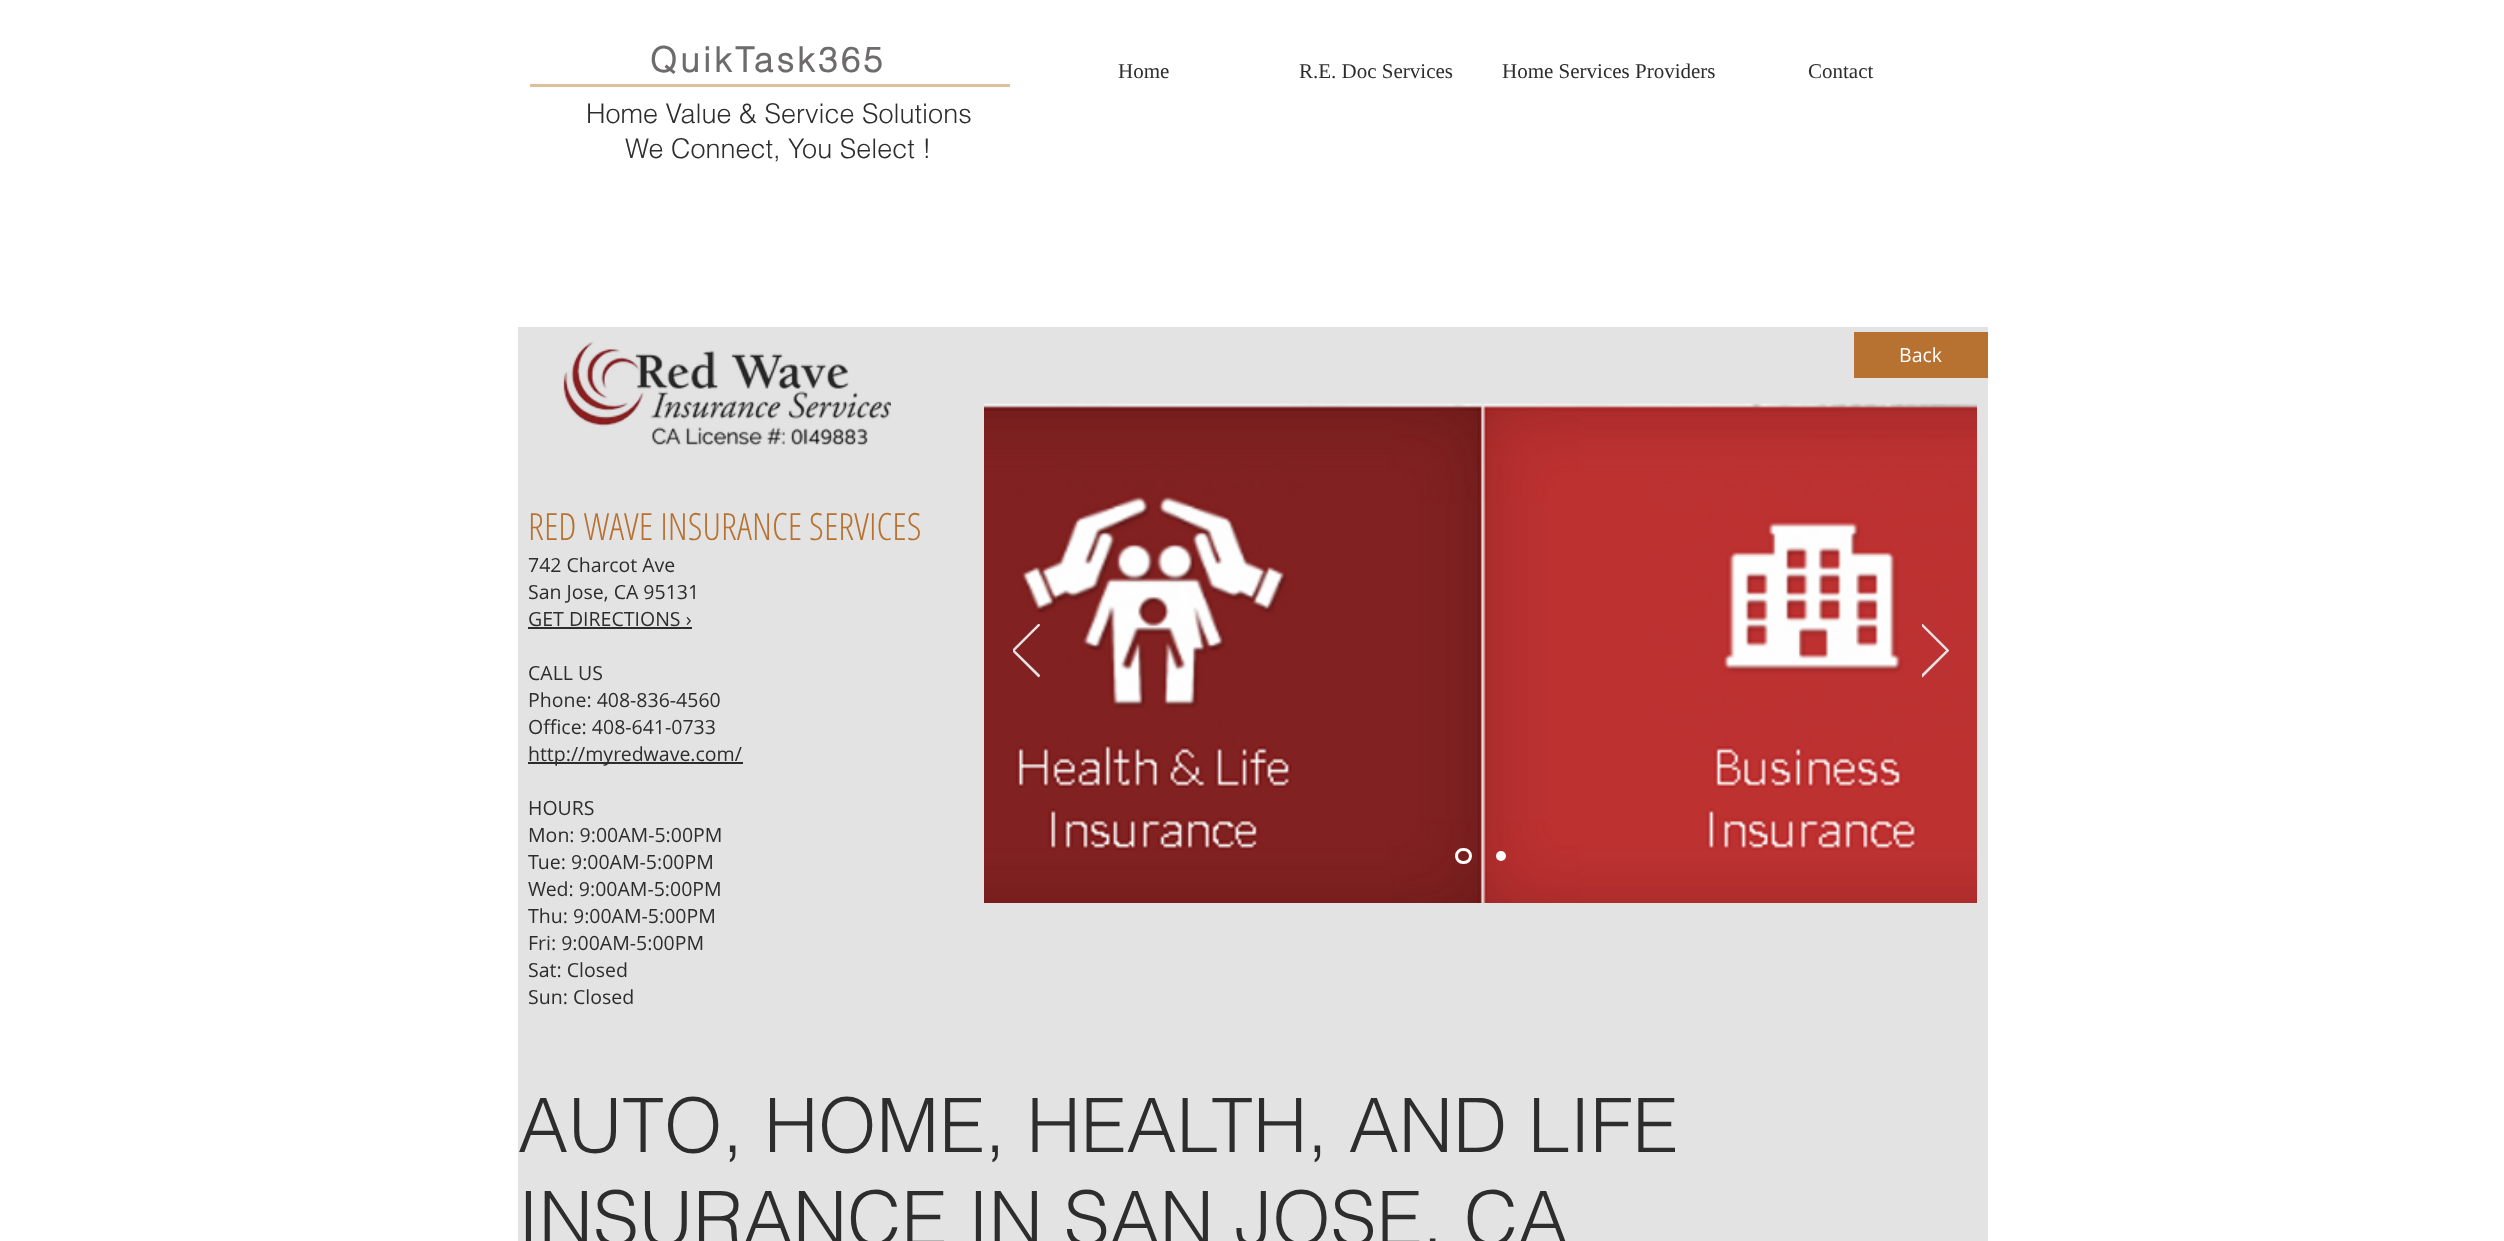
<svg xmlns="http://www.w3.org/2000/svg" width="2504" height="1241">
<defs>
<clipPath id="clip1"><rect x="1013" y="624" width="27" height="54"/></clipPath>
<clipPath id="clip2"><rect x="1922" y="624" width="27" height="54"/></clipPath>
</defs>
<rect width="100%" height="100%" fill="#fff"/>
<text x="650" y="72" style="font-family:helvetica;font-size:34.5px;font-weight:bold;letter-spacing:3.5px;fill:#6d6b6b">QuikTask365</text>
<text x="1118" y="78" style="font-family:Liberation Serif;font-size:21px;fill:#2d2d2d">Home</text>
<text x="1299" y="78" style="font-family:Liberation Serif;font-size:21px;fill:#2d2d2d">R.E. Doc Services</text>
<text x="1502" y="78" style="font-family:Liberation Serif;font-size:21px;fill:#2d2d2d">Home Services Providers</text>
<text x="1808" y="78" style="font-family:Liberation Serif;font-size:21px;fill:#2d2d2d">Contact</text>
<rect x="530" y="84" width="480" height="3" fill="#ddbf9b"/>
<text x="586" y="123" style="font-family:helvetica;font-size:27px;font-weight:300;fill:#2d2d2d">Home Value &amp; Service Solutions</text>
<text x="625" y="158" style="font-family:helvetica;font-size:27px;font-weight:300;fill:#2d2d2d">We Connect, You Select !</text>
<rect x="518" y="327" width="1470" height="914" fill="#e3e3e3"/>
<image x="563" y="342" width="328" height="104" href="media/1.png"/>
<rect x="1854" y="332" width="134" height="46" fill="#b77231"/>
<text x="1899" y="362" style="font-family:Open Sans;font-size:19.5px;fill:#fff">Back</text>
<text x="528" y="540" style="font-family:Open Sans Condensed;font-size:37.5px;font-weight:300;fill:#b77231">RED WAVE INSURANCE SERVICES</text>
<text x="528" y="572" style="font-family:Open Sans;font-size:19.5px;fill:#2d2d2d">742 Charcot Ave</text>
<text x="528" y="599" style="font-family:Open Sans;font-size:19.5px;fill:#2d2d2d">San Jose, CA 95131</text>
<text x="528" y="626" style="font-family:Open Sans;font-size:19.5px;fill:#2d2d2d">GET DIRECTIONS ›</text>
<rect x="528" y="627" width="164" height="2" fill="#2d2d2d"/>
<text x="528" y="680" style="font-family:Open Sans;font-size:19.5px;fill:#2d2d2d">CALL US</text>
<text x="528" y="707" style="font-family:Open Sans;font-size:19.5px;fill:#2d2d2d">Phone: 408-836-4560</text>
<text x="528" y="734" style="font-family:Open Sans;font-size:19.5px;fill:#2d2d2d">Office: 408-641-0733</text>
<rect x="528" y="762" width="215" height="2" fill="#2d2d2d"/>
<text x="528" y="761" style="font-family:Open Sans;font-size:19.5px;fill:#2d2d2d">http://myredwave.com/</text>
<text x="528" y="815" style="font-family:Open Sans;font-size:19.5px;fill:#2d2d2d">HOURS</text>
<text x="528" y="842" style="font-family:Open Sans;font-size:19.5px;fill:#2d2d2d">Mon: 9:00AM-5:00PM</text>
<text x="528" y="869" style="font-family:Open Sans;font-size:19.5px;fill:#2d2d2d">Tue: 9:00AM-5:00PM</text>
<text x="528" y="896" style="font-family:Open Sans;font-size:19.5px;fill:#2d2d2d">Wed: 9:00AM-5:00PM</text>
<text x="528" y="923" style="font-family:Open Sans;font-size:19.5px;fill:#2d2d2d">Thu: 9:00AM-5:00PM</text>
<text x="528" y="950" style="font-family:Open Sans;font-size:19.5px;fill:#2d2d2d">Fri: 9:00AM-5:00PM</text>
<text x="528" y="977" style="font-family:Open Sans;font-size:19.5px;fill:#2d2d2d">Sat: Closed</text>
<text x="528" y="1004" style="font-family:Open Sans;font-size:19.5px;fill:#2d2d2d">Sun: Closed</text>
<image x="984" y="403" width="993" height="500" href="media/2.png"/>
<g clip-path="url(#clip1)">
<path d="M1038.5 676.5l-26-26l26-26l1 .5l-25.5 25.5l25.5 25z" fill="none" stroke="#e3e3e3" stroke-width="1.3"/>
</g>
<g clip-path="url(#clip2)">
<path d="M1922.5 676.5l26-26l-26-26l-1 .5l25.5 25.5l-25.5 25z" fill="none" stroke="#e3e3e3" stroke-width="1.3"/>
</g>
<rect x="1456.5" y="849.5" width="14" height="13" rx="6.5" fill="none" stroke="#fff" stroke-width="3"/>
<circle cx="1501" cy="856" r="5" fill="#fff"/>
<text x="518" y="1152" style="font-family:helvetica;font-size:75px;font-weight:300;fill:#2d2d2d">AUTO, HOME, HEALTH, AND LIFE</text>
<text x="518" y="1245" style="font-family:helvetica;font-size:75px;font-weight:300;fill:#2d2d2d">INSURANCE IN SAN JOSE, CA</text>
</svg>
